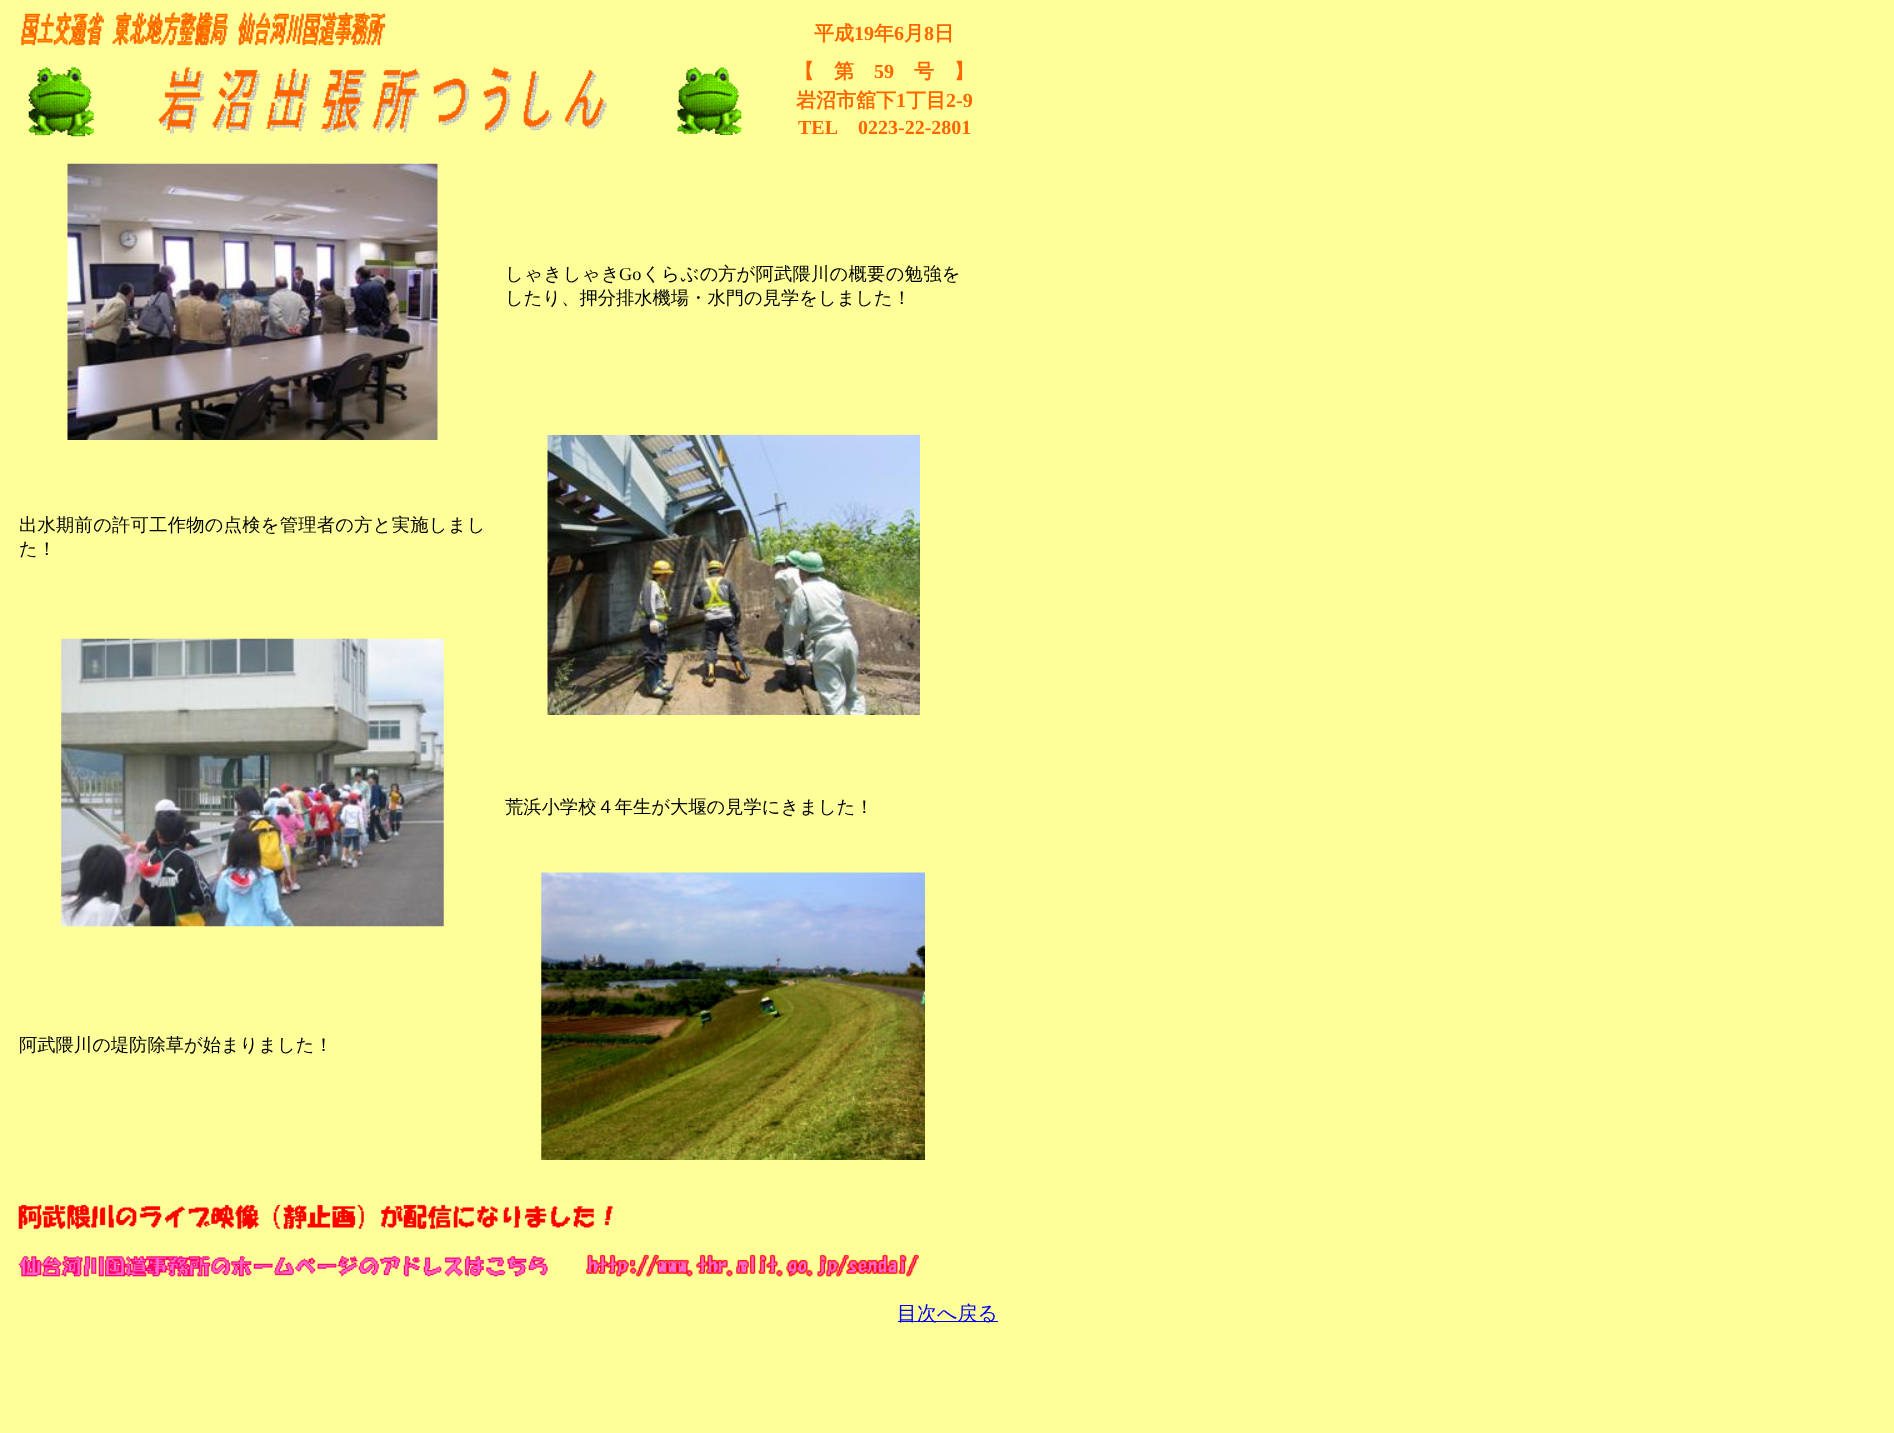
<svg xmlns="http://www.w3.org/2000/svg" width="1894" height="1433">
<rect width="100%" height="100%" fill="#ff9"/>
<image x="21" y="12" width="365" height="34" href="media/1.png"/>
<text x="814" y="40" style="font-family:WenQuanYi Zen Hei;font-size:20px;font-weight:bold;fill:#f60">平成</text>
<text x="854" y="40" style="font-family:Liberation Serif;font-size:20px;font-weight:bold;fill:#f60">19</text>
<text x="874" y="40" style="font-family:WenQuanYi Zen Hei;font-size:20px;font-weight:bold;fill:#f60">年</text>
<text x="894" y="40" style="font-family:Liberation Serif;font-size:20px;font-weight:bold;fill:#f60">6</text>
<text x="904" y="40" style="font-family:WenQuanYi Zen Hei;font-size:20px;font-weight:bold;fill:#f60">月</text>
<text x="924" y="40" style="font-family:Liberation Serif;font-size:20px;font-weight:bold;fill:#f60">8</text>
<text x="934" y="40" style="font-family:WenQuanYi Zen Hei;font-size:20px;font-weight:bold;fill:#f60">日</text>
<image x="28" y="67" width="66" height="70" href="media/2.png"/>
<image x="158" y="67" width="449" height="67" href="media/3.png"/>
<image x="677" y="67" width="65" height="68" href="media/4.png"/>
<text x="794" y="78" style="font-family:WenQuanYi Zen Hei;font-size:20px;font-weight:bold;fill:#f60">【　第</text>
<text x="874" y="78" style="font-family:Liberation Serif;font-size:20px;font-weight:bold;fill:#f60">59</text>
<text x="914" y="78" style="font-family:WenQuanYi Zen Hei;font-size:20px;font-weight:bold;fill:#f60">号　】</text>
<text x="796" y="107" style="font-family:WenQuanYi Zen Hei;font-size:20px;font-weight:bold;fill:#f60">岩沼市舘下</text>
<text x="896" y="107" style="font-family:Liberation Serif;font-size:20px;font-weight:bold;fill:#f60">1</text>
<text x="906" y="107" style="font-family:WenQuanYi Zen Hei;font-size:20px;font-weight:bold;fill:#f60">丁目</text>
<text x="946" y="107" style="font-family:Liberation Serif;font-size:20px;font-weight:bold;fill:#f60">2-9</text>
<text x="798" y="134" style="font-family:Liberation Serif;font-size:20px;font-weight:bold;fill:#f60">TEL</text>
<text x="858" y="134" style="font-family:Liberation Serif;font-size:20px;font-weight:bold;fill:#f60">0223-22-2801</text>
<image x="67" y="163" width="371" height="277" href="media/5.png"/>
<text x="505" y="280" style="font-family:WenQuanYi Zen Hei;font-size:18.3px;font-weight:500;letter-spacing:0.5px;fill:#000">しゃきしゃき</text>
<text x="619" y="280" style="font-family:Liberation Serif;font-size:18.3px;fill:#000">Go</text>
<text x="642" y="280" style="font-family:WenQuanYi Zen Hei;font-size:18.3px;font-weight:500;letter-spacing:0.5px;fill:#000">くらぶの</text>
<text x="718" y="280" style="font-family:WenQuanYi Zen Hei;font-size:18.3px;font-weight:500;letter-spacing:0.25px;fill:#000">方が阿武隈川の概要の勉強を</text>
<text x="505" y="304" style="font-family:WenQuanYi Zen Hei;font-size:18.3px;font-weight:500;fill:#000">したり、押分排水機場・水門の見学をしました！</text>
<text x="19" y="531" style="font-family:WenQuanYi Zen Hei;font-size:18.3px;font-weight:500;letter-spacing:0.25px;fill:#000">出水期前の許可工作物の点検を管理者の方と実施しまし</text>
<text x="19" y="555" style="font-family:WenQuanYi Zen Hei;font-size:18.3px;font-weight:500;fill:#000">た！</text>
<image x="547" y="435" width="373" height="280" href="media/6.png"/>
<image x="61" y="638" width="383" height="289" href="media/7.png"/>
<text x="505" y="813" style="font-family:WenQuanYi Zen Hei;font-size:18.3px;font-weight:500;fill:#000">荒浜小学校４年生が大堰の見学にきました！</text>
<text x="19" y="1051" style="font-family:WenQuanYi Zen Hei;font-size:18.3px;font-weight:500;fill:#000">阿武隈川の堤防除草が始まりました！</text>
<image x="541" y="872" width="384" height="288" href="media/8.png"/>
<image x="18" y="1204" width="595" height="25" href="media/9.png"/>
<image x="18" y="1254" width="901" height="23" href="media/10.png"/>
<rect x="898" y="1321" width="100" height="1" fill="#00e"/>
<text x="897" y="1320" style="font-family:WenQuanYi Zen Hei;font-size:20px;font-weight:500;fill:#00e">目次へ戻る</text>
</svg>
